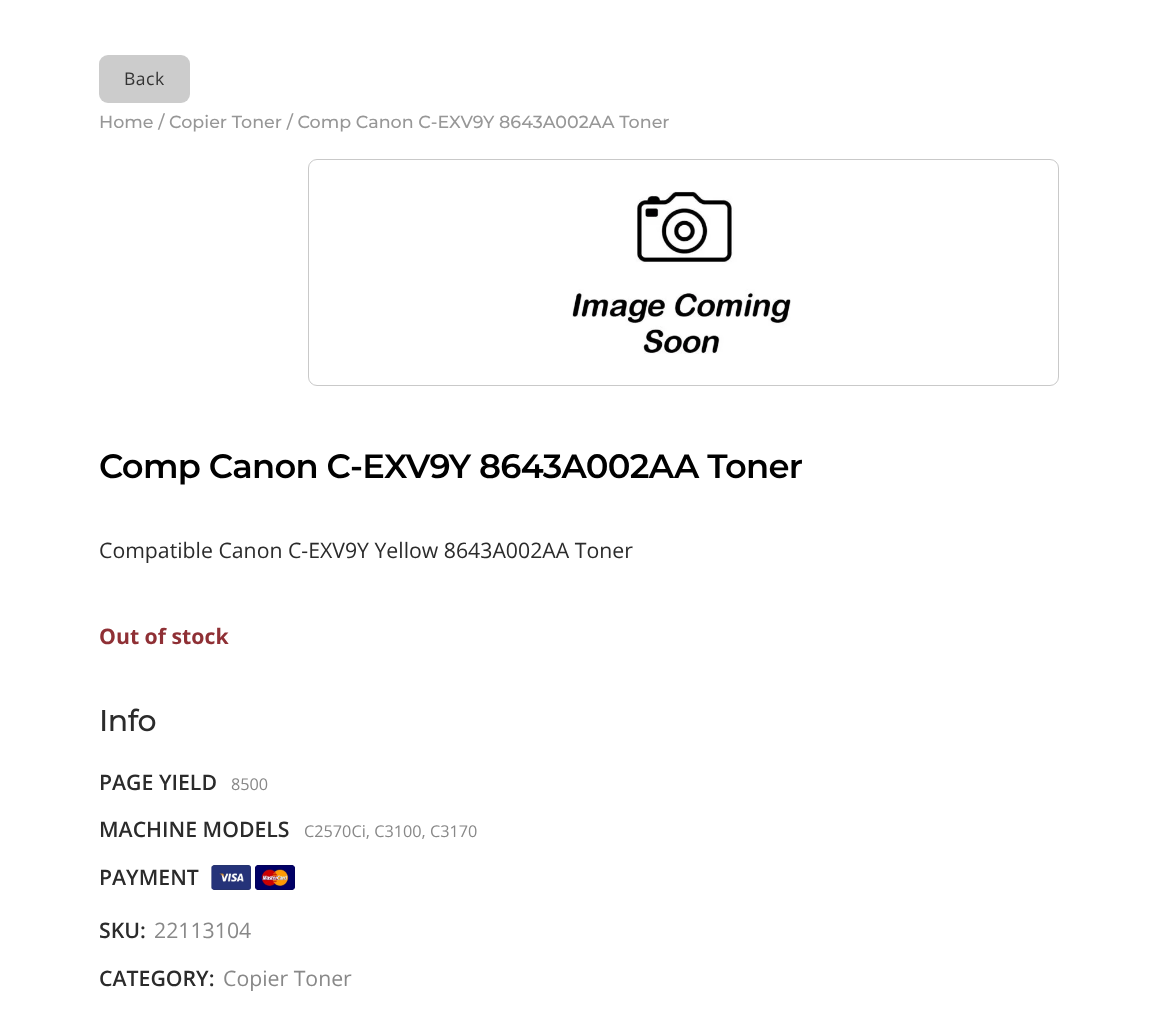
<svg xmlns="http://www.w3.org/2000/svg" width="1157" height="1022">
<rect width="100%" height="100%" fill="#fff"/>
<rect x="99" y="55" width="91" height="48" rx="9" fill="#ccc"/>
<text x="124" y="85" style="font-family:Open Sans;font-size:17.5px;letter-spacing:0.5px;fill:#333">Back</text>
<text x="99" y="128" style="font-family:Montserrat;font-size:17.5px;font-weight:500;fill:#979797">Home / Copier Toner / Comp Canon C-EXV9Y 8643A002AA Toner</text>
<rect x="308.5" y="159.5" width="750" height="226" rx="8.5" fill="none" stroke="#c9c9c9"/>
<image x="572" y="191" width="219" height="163" href="media/1.png"/>
<text x="99" y="478" style="font-family:Montserrat;font-size:33.75px;font-weight:600;letter-spacing:-0.7px;fill:#000">Comp Canon C-EXV9Y 8643A002AA Toner</text>
<text x="99" y="558" style="font-family:Open Sans;font-size:21.25px;fill:#2b2b2b">Compatible Canon C-EXV9Y Yellow 8643A002AA Toner</text>
<text x="99" y="644" style="font-family:Open Sans;font-size:21.25px;font-weight:bold;fill:#8f3035">Out of stock</text>
<text x="99" y="731" style="font-family:Montserrat;font-size:30px;font-weight:500;letter-spacing:-0.5px;fill:#2b2b2b">Info</text>
<text x="99" y="790" style="font-family:Open Sans;font-size:21.25px;font-weight:600;fill:#2b2b2b">PAGE YIELD</text>
<text x="231" y="790" style="font-family:Open Sans;font-size:16.25px;fill:#888">8500</text>
<text x="99" y="837" style="font-family:Open Sans;font-size:21.25px;font-weight:600;fill:#2b2b2b">MACHINE MODELS</text>
<text x="304" y="837" style="font-family:Open Sans;font-size:16.25px;fill:#888">C2570Ci, C3100, C3170</text>
<text x="99" y="885" style="font-family:Open Sans;font-size:21.25px;font-weight:600;fill:#2b2b2b">PAYMENT</text>
<image x="211" y="865" width="84" height="25" href="media/2.png"/>
<text x="99" y="938" style="font-family:Open Sans;font-size:21.25px;font-weight:600;fill:#2b2b2b">SKU:</text>
<text x="154" y="938" style="font-family:Open Sans;font-size:21.25px;fill:#888">22113104</text>
<text x="99" y="986" style="font-family:Open Sans;font-size:21.25px;font-weight:600;fill:#2b2b2b">CATEGORY:</text>
<text x="223" y="986" style="font-family:Open Sans;font-size:21.25px;fill:#888">Copier Toner</text>
</svg>
